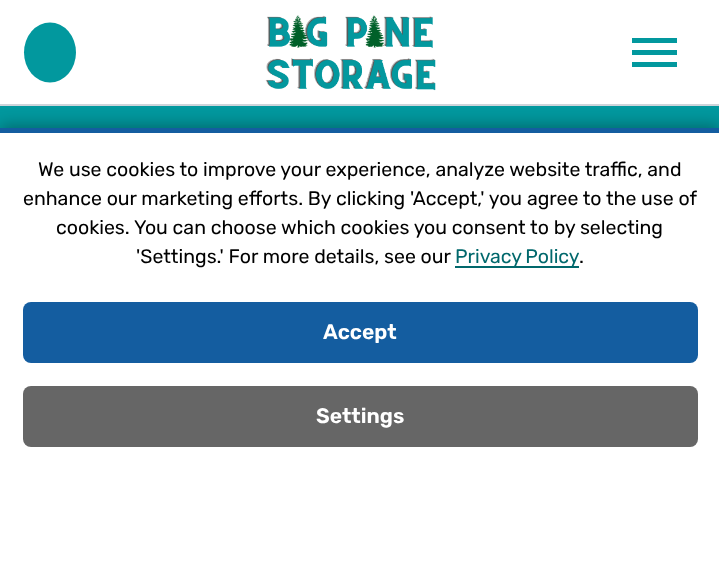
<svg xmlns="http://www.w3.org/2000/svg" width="719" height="561">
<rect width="100%" height="100%" fill="#fff"/>
<rect y="104" width="719" height="2" fill="#ced4da"/>
<ellipse cx="50" cy="52.5" rx="26" ry="30" fill="#02989e"/>
<image x="265" y="15" width="171" height="76" href="media/1.png"/>
<rect x="632" y="38" width="45" height="5" fill="#02989e"/>
<rect x="632" y="50" width="45" height="5" fill="#02989e"/>
<rect x="632" y="62" width="45" height="5" fill="#02989e"/>
<rect y="106" width="719" height="22" fill="#02989e"/>
<rect y="125" width="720" height="433" fill="#0000004d" filter="blur(7.5px)"/>
<rect y="133" width="719" height="428" fill="#fff"/>
<rect y="128" width="719" height="5" fill="#145da0"/>
<text x="38" y="176" style="font-family:Rubik;font-size:19.5px;fill:#000">We use cookies to improve your experience, analyze website traffic, and</text>
<text x="23" y="205" style="font-family:Rubik;font-size:19.5px;fill:#000">enhance our marketing efforts. By clicking 'Accept,' you agree to the use of</text>
<text x="56" y="234" style="font-family:Rubik;font-size:19.5px;fill:#000">cookies. You can choose which cookies you consent to by selecting</text>
<text x="136" y="263" style="font-family:Rubik;font-size:19.5px;fill:#000">'Settings.' For more details, see our</text>
<rect x="455" y="266" width="124" height="2" fill="#01686c"/>
<text x="455" y="263" word-spacing="-1" style="font-family:Rubik;font-size:19.5px;fill:#01686c">Privacy Policy</text>
<text x="579" y="263" style="font-family:Rubik;font-size:19.5px;fill:#000">.</text>
<rect x="23" y="302" width="675" height="61" rx="8" fill="#145da0"/>
<text x="323" y="339" style="font-family:Rubik;font-size:21px;font-weight:600;fill:#fff">Accept</text>
<rect x="23" y="386" width="675" height="61" rx="8" fill="#666"/>
<text x="316" y="423" style="font-family:Rubik;font-size:21px;font-weight:600;fill:#fff">Settings</text>
</svg>
